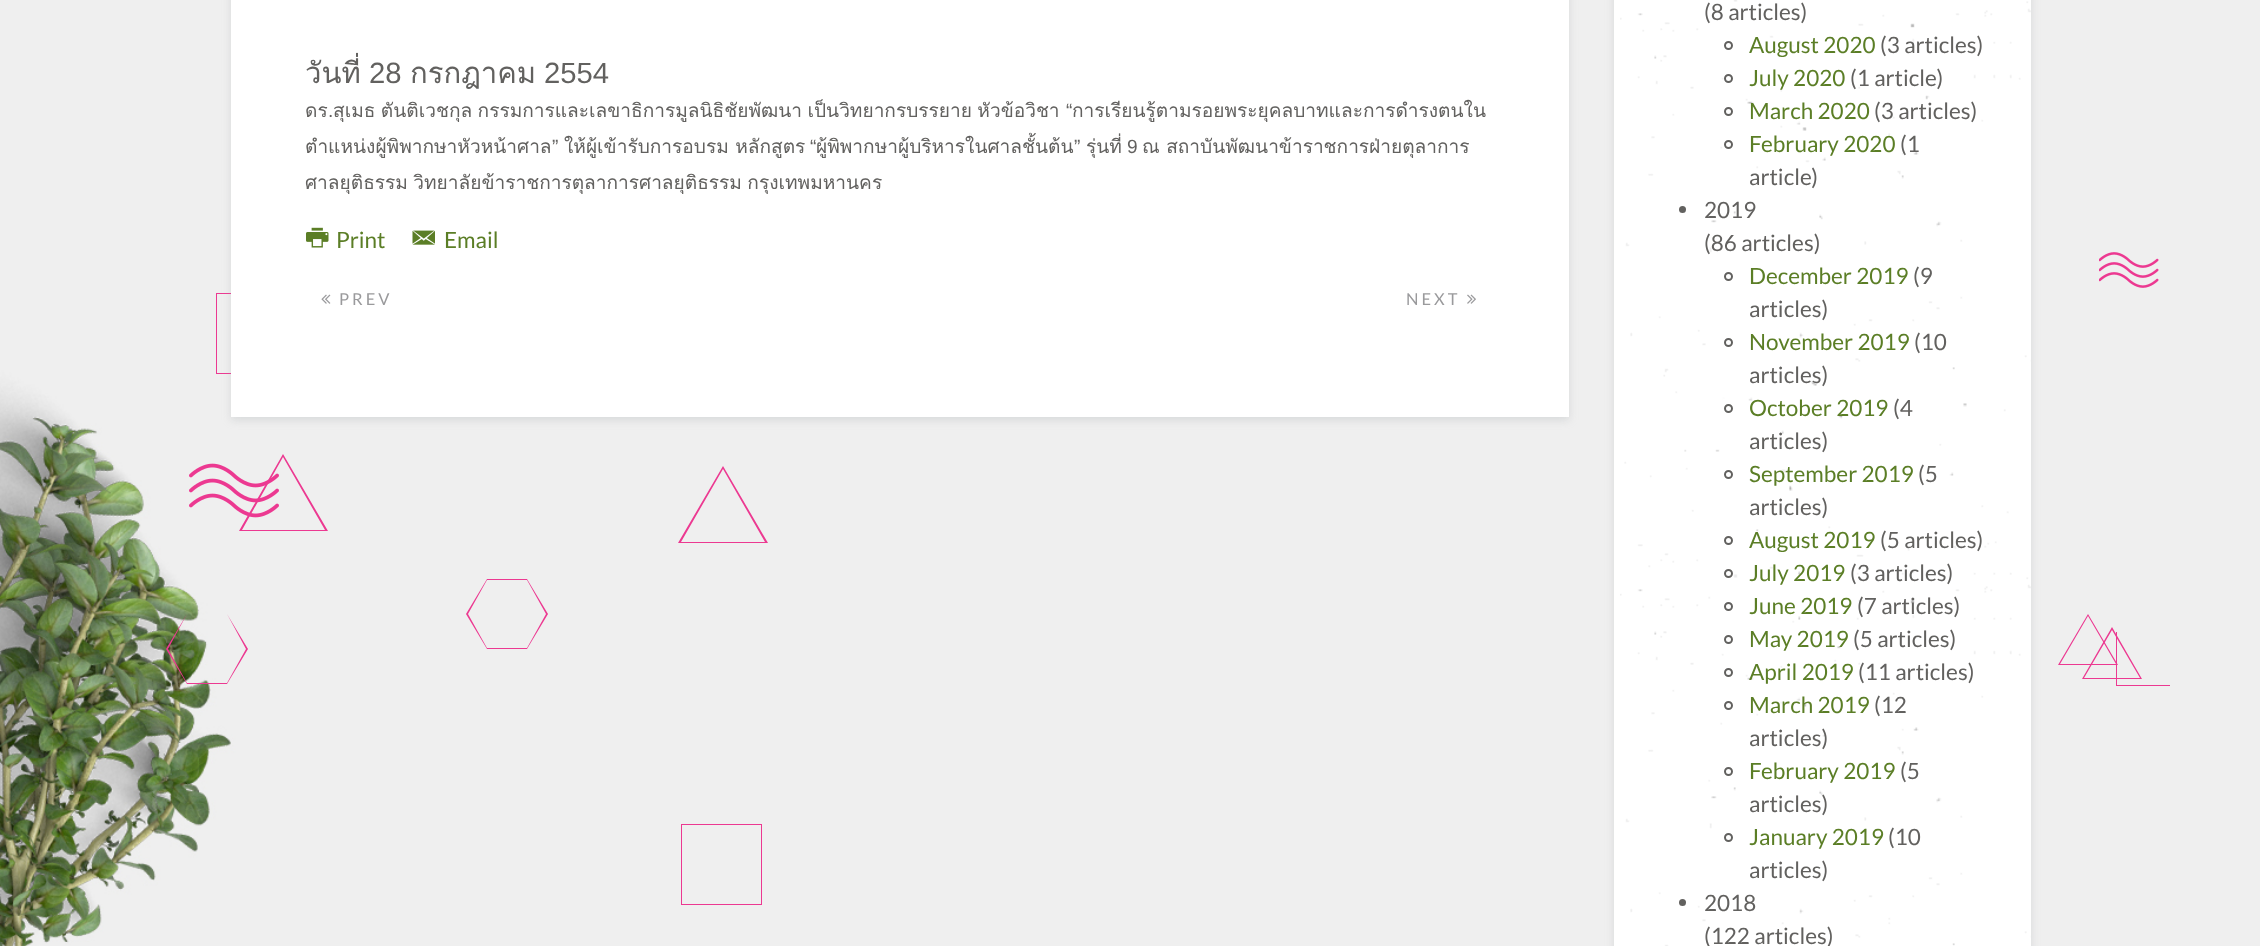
<svg xmlns="http://www.w3.org/2000/svg" width="2260" height="946">
<rect width="100%" height="100%" fill="#fff"/>
<image x="0" y="0" width="2260" height="946" href="media/1.png"/>
<path d="M297 293h-81v81h81zm-1 80h-79v-79h79z" fill="#ec3991"/>
<rect x="231" y="-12" width="1338" height="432" fill="#a0a7a94d" filter="blur(4px)"/>
<rect x="231" width="1338" height="417" fill="#fff"/>
<text x="305" y="83" style="font-family:Loma;font-size:29.25px;fill:#62615f">วันที่</text>
<text x="369" y="83" style="font-family:Liberation Sans;font-size:29.25px;fill:#62615f">28</text>
<text x="410" y="83" style="font-family:Loma;font-size:29.25px;fill:#62615f">กรกฎาคม</text>
<text x="544" y="83" style="font-family:Liberation Sans;font-size:29.25px;fill:#62615f">2554</text>
<text x="305" y="117" style="font-family:Loma;font-size:19.1px;fill:#62615f">ดร</text>
<text x="328" y="117" style="font-family:Liberation Sans;font-size:19.1px;fill:#62615f">.</text>
<text x="333" y="117" word-spacing="-1" style="font-family:Loma;font-size:19.1px;fill:#62615f">สุเมธ ตันติเวชกุล กรรมการและเลขาธิการมูลนิธิชัยพัฒนา เป็นวิทยากรบรรยาย หัวข้อวิชา</text>
<text x="1066" y="117" style="font-family:Liberation Sans;font-size:19.1px;fill:#62615f">“</text>
<text x="1072" y="117" style="font-family:Loma;font-size:19.1px;fill:#62615f">การเรียนรู้ตามรอยพระยุคลบาทและการดำรงตนใน</text>
<text x="305" y="153" style="font-family:Loma;font-size:19.1px;fill:#62615f">ตำแหน่งผู้พิพากษาหัวหน้าศาล</text>
<text x="552" y="153" style="font-family:Liberation Sans;font-size:19.1px;fill:#62615f">”</text>
<text x="564" y="153" style="font-family:Loma;font-size:19.1px;fill:#62615f">ให้ผู้เข้ารับการอบรม หลักสูตร</text>
<text x="810" y="153" style="font-family:Liberation Sans;font-size:19.1px;fill:#62615f">“</text>
<text x="816" y="153" style="font-family:Loma;font-size:19.1px;fill:#62615f">ผู้พิพากษาผู้บริหารในศาลชั้นต้น</text>
<text x="1086" y="153" style="font-family:Loma;font-size:19.1px;fill:#62615f">รุ่นที่</text>
<text x="1142" y="153" style="font-family:Loma;font-size:19.1px;fill:#62615f">ณ สถาบันพัฒนาข้าราชการฝ่ายตุลาการ</text>
<text x="1074" y="153" style="font-family:Liberation Sans;font-size:19.1px;fill:#62615f">”</text>
<text x="1127" y="153" style="font-family:Liberation Sans;font-size:19.1px;fill:#62615f">9</text>
<text x="305" y="189" word-spacing="-1" style="font-family:Loma;font-size:19.1px;fill:#62615f">ศาลยุติธรรม วิทยาลัยข้าราชการตุลาการศาลยุติธรรม กรุงเทพมหานคร</text>
<image x="306" y="227" width="23" height="21" href="media/2.png"/>
<text x="336" y="248" style="font-family:Lato;font-size:22.5px;fill:#5b7e26">Print</text>
<image x="412" y="230" width="23" height="15" href="media/3.png"/>
<text x="444" y="248" style="font-family:Lato;font-size:22.5px;fill:#5b7e26">Email</text>
<image x="321" y="294" width="10" height="10" href="media/4.png"/>
<text x="339" y="305" style="font-family:Lato;font-size:16.5px;letter-spacing:3px;fill:#9a9a9c">PREV</text>
<text x="1406" y="305" style="font-family:Lato;font-size:16.5px;letter-spacing:3px;fill:#9a9a9c">NEXT</text>
<image x="1467" y="294" width="9" height="10" href="media/5.png"/>
<rect x="1614" y="-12" width="417" height="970" fill="#a0a7a94d" filter="blur(4px)"/>
<rect x="1614" width="417" height="946" fill="#fff"/>
<image x="1620" y="0" width="411" height="946" href="media/6.png"/>
<text x="1704" y="20" style="font-family:Lato;font-size:22.5px;fill:#62615f">(8 articles)</text>
<circle cx="1728.5" cy="45.5" r="3.5" fill="none" stroke="#62615f" stroke-width="2"/>
<text x="1749" y="53" style="font-family:Lato;font-size:22.5px;fill:#5b7e26">August 2020</text>
<text x="1880" y="53" style="font-family:Lato;font-size:22.5px;fill:#62615f">(3 articles)</text>
<circle cx="1728.5" cy="78.5" r="3.5" fill="none" stroke="#62615f" stroke-width="2"/>
<text x="1749" y="86" style="font-family:Lato;font-size:22.5px;fill:#5b7e26">July 2020</text>
<text x="1850" y="86" style="font-family:Lato;font-size:22.5px;fill:#62615f">(1 article)</text>
<circle cx="1728.5" cy="111.5" r="3.5" fill="none" stroke="#62615f" stroke-width="2"/>
<text x="1749" y="119" style="font-family:Lato;font-size:22.5px;fill:#5b7e26">March 2020</text>
<text x="1874" y="119" style="font-family:Lato;font-size:22.5px;fill:#62615f">(3 articles)</text>
<circle cx="1728.5" cy="144.5" r="3.5" fill="none" stroke="#62615f" stroke-width="2"/>
<text x="1749" y="152" style="font-family:Lato;font-size:22.5px;fill:#5b7e26">February 2020</text>
<text x="1900" y="152" style="font-family:Lato;font-size:22.5px;fill:#62615f">(1</text>
<text x="1749" y="185" style="font-family:Lato;font-size:22.5px;fill:#62615f">article)</text>
<circle cx="1682.5" cy="209.5" r="3.5" fill="#62615f"/>
<text x="1704" y="218" style="font-family:Lato;font-size:22.5px;fill:#62615f">2019</text>
<text x="1704" y="251" style="font-family:Lato;font-size:22.5px;fill:#62615f">(86 articles)</text>
<circle cx="1728.5" cy="276.5" r="3.5" fill="none" stroke="#62615f" stroke-width="2"/>
<text x="1749" y="284" style="font-family:Lato;font-size:22.5px;fill:#5b7e26">December 2019</text>
<text x="1913" y="284" style="font-family:Lato;font-size:22.5px;fill:#62615f">(9</text>
<text x="1749" y="317" style="font-family:Lato;font-size:22.5px;fill:#62615f">articles)</text>
<circle cx="1728.5" cy="342.5" r="3.5" fill="none" stroke="#62615f" stroke-width="2"/>
<text x="1749" y="350" style="font-family:Lato;font-size:22.5px;fill:#5b7e26">November 2019</text>
<text x="1914" y="350" style="font-family:Lato;font-size:22.5px;fill:#62615f">(10</text>
<text x="1749" y="383" style="font-family:Lato;font-size:22.5px;fill:#62615f">articles)</text>
<circle cx="1728.5" cy="408.5" r="3.5" fill="none" stroke="#62615f" stroke-width="2"/>
<text x="1749" y="416" style="font-family:Lato;font-size:22.5px;fill:#5b7e26">October 2019</text>
<text x="1893" y="416" style="font-family:Lato;font-size:22.5px;fill:#62615f">(4</text>
<text x="1749" y="449" style="font-family:Lato;font-size:22.5px;fill:#62615f">articles)</text>
<circle cx="1728.5" cy="474.5" r="3.5" fill="none" stroke="#62615f" stroke-width="2"/>
<text x="1749" y="482" style="font-family:Lato;font-size:22.5px;fill:#5b7e26">September 2019</text>
<text x="1918" y="482" style="font-family:Lato;font-size:22.5px;fill:#62615f">(5</text>
<text x="1749" y="515" style="font-family:Lato;font-size:22.5px;fill:#62615f">articles)</text>
<circle cx="1728.5" cy="540.5" r="3.5" fill="none" stroke="#62615f" stroke-width="2"/>
<text x="1749" y="548" style="font-family:Lato;font-size:22.5px;fill:#5b7e26">August 2019</text>
<text x="1880" y="548" style="font-family:Lato;font-size:22.5px;fill:#62615f">(5 articles)</text>
<circle cx="1728.5" cy="573.5" r="3.5" fill="none" stroke="#62615f" stroke-width="2"/>
<text x="1749" y="581" style="font-family:Lato;font-size:22.5px;fill:#5b7e26">July 2019</text>
<text x="1850" y="581" style="font-family:Lato;font-size:22.5px;fill:#62615f">(3 articles)</text>
<circle cx="1728.5" cy="606.5" r="3.5" fill="none" stroke="#62615f" stroke-width="2"/>
<text x="1749" y="614" style="font-family:Lato;font-size:22.5px;fill:#5b7e26">June 2019</text>
<text x="1857" y="614" style="font-family:Lato;font-size:22.5px;fill:#62615f">(7 articles)</text>
<circle cx="1728.5" cy="639.5" r="3.5" fill="none" stroke="#62615f" stroke-width="2"/>
<text x="1749" y="647" style="font-family:Lato;font-size:22.5px;fill:#5b7e26">May 2019</text>
<text x="1853" y="647" style="font-family:Lato;font-size:22.5px;fill:#62615f">(5 articles)</text>
<circle cx="1728.5" cy="672.5" r="3.5" fill="none" stroke="#62615f" stroke-width="2"/>
<text x="1749" y="680" style="font-family:Lato;font-size:22.5px;fill:#5b7e26">April 2019</text>
<text x="1858" y="680" style="font-family:Lato;font-size:22.5px;fill:#62615f">(11 articles)</text>
<circle cx="1728.5" cy="705.5" r="3.5" fill="none" stroke="#62615f" stroke-width="2"/>
<text x="1749" y="713" style="font-family:Lato;font-size:22.5px;fill:#5b7e26">March 2019</text>
<text x="1874" y="713" style="font-family:Lato;font-size:22.5px;fill:#62615f">(12</text>
<text x="1749" y="746" style="font-family:Lato;font-size:22.5px;fill:#62615f">articles)</text>
<circle cx="1728.5" cy="771.5" r="3.5" fill="none" stroke="#62615f" stroke-width="2"/>
<text x="1749" y="779" style="font-family:Lato;font-size:22.5px;fill:#5b7e26">February 2019</text>
<text x="1900" y="779" style="font-family:Lato;font-size:22.5px;fill:#62615f">(5</text>
<text x="1749" y="812" style="font-family:Lato;font-size:22.5px;fill:#62615f">articles)</text>
<circle cx="1728.5" cy="837.5" r="3.5" fill="none" stroke="#62615f" stroke-width="2"/>
<text x="1749" y="845" style="font-family:Lato;font-size:22.5px;fill:#5b7e26">January 2019</text>
<text x="1888" y="845" style="font-family:Lato;font-size:22.5px;fill:#62615f">(10</text>
<text x="1749" y="878" style="font-family:Lato;font-size:22.5px;fill:#62615f">articles)</text>
<circle cx="1682.5" cy="902.5" r="3.5" fill="#62615f"/>
<text x="1704" y="911" style="font-family:Lato;font-size:22.5px;fill:#62615f">2018</text>
<text x="1704" y="944" style="font-family:Lato;font-size:22.5px;fill:#62615f">(122 articles)</text>
<image x="2099" y="252" width="60" height="36" href="media/7.png"/>
<path d="M239 531l44-77l45 77zm44-74l-41 73h83z" fill="#ec3991"/>
<image x="189" y="463" width="90" height="55" href="media/8.png"/>
<path d="M678 543l45-77l45 77zm45-74l-42 73h84z" fill="#ec3991"/>
<path d="M227 684l21-35l-21-35h-40l-21 35l21 35zm-40-70h40l19 35l-19 34h-40l-19-34z" fill="#ec3991"/>
<path d="M527 649l21-35l-21-35h-40l-21 35l21 35zm-40-69h40l19 34l-19 34h-40l-19-34z" fill="#ec3991"/>
<path d="M2170 632h-54v54h54zm0 53h-53v-53h53z" fill="#ec3991"/>
<path d="M2058 665l30-51l30 51zm30-49l-28 48h56z" fill="#ec3991"/>
<path d="M2082 679l30-52l30 52zm30-49l-28 48h56z" fill="#ec3991"/>
<path d="M762 824h-81v81h81zm-1 80h-79v-79h79z" fill="#ec3991"/>
</svg>
